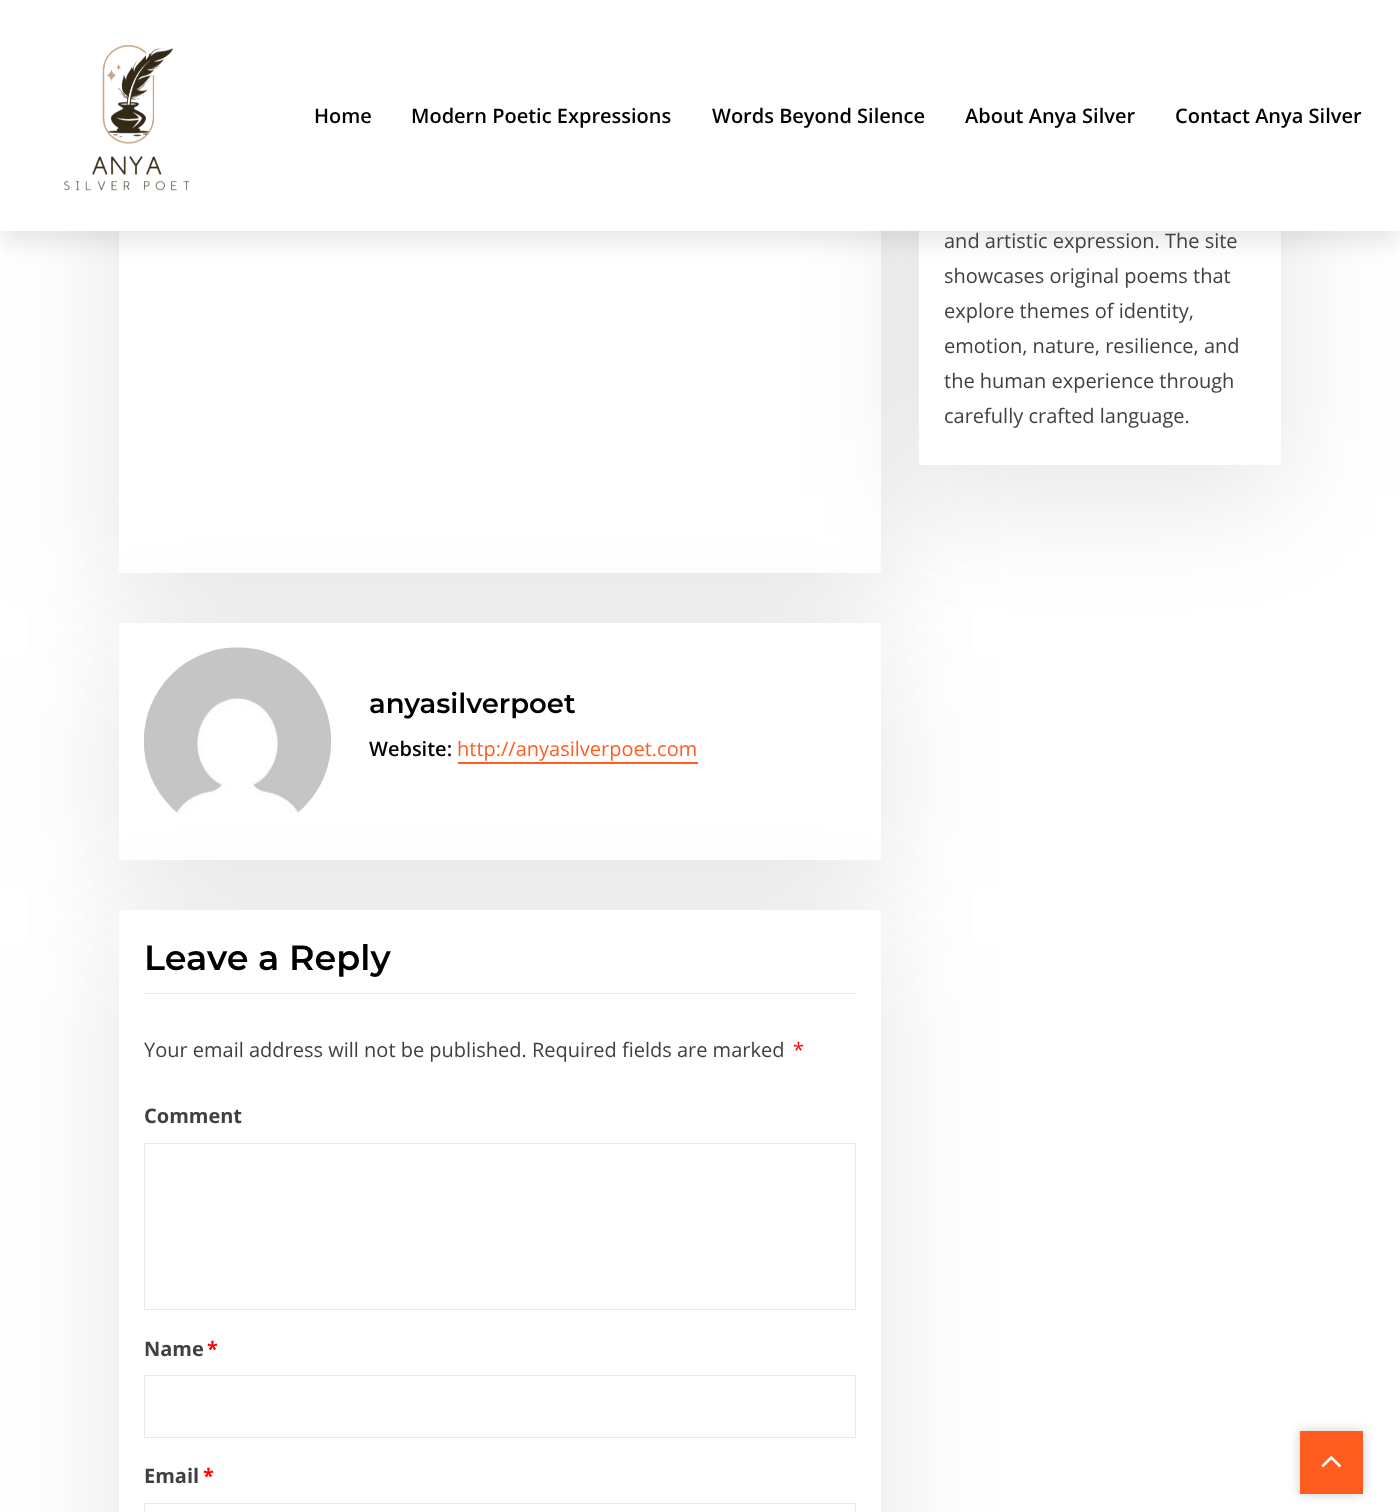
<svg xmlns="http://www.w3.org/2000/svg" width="1400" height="1512">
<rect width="100%" height="100%" fill="#fff"/>
<rect x="119" y="-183" width="762" height="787" fill="#0000001a" filter="blur(61px)"/>
<rect x="119" y="231" width="762" height="342" fill="#fff"/>
<rect x="119" y="654" width="762" height="237" fill="#0000001a" filter="blur(61px)"/>
<rect x="119" y="623" width="762" height="237" fill="#fff"/>
<rect x="919" y="-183" width="362" height="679" fill="#0000001a" filter="blur(61px)"/>
<rect x="919" y="231" width="362" height="234" fill="#fff"/>
<rect y="10" width="1400" height="231" fill="#0000001a" filter="blur(12.5px)"/>
<rect width="1400" height="231" fill="#fff"/>
<image x="64" y="44" width="126" height="147" href="media/1.png"/>
<text x="314" y="123" style="font-family:Open Sans;font-size:20px;font-weight:600;fill:#000">Home</text>
<text x="411" y="123" style="font-family:Open Sans;font-size:20px;font-weight:600;fill:#000">Modern Poetic Expressions</text>
<text x="712" y="123" style="font-family:Open Sans;font-size:20px;font-weight:600;fill:#000">Words Beyond Silence</text>
<text x="965" y="123" style="font-family:Open Sans;font-size:20px;font-weight:600;fill:#000">About Anya Silver</text>
<text x="1175" y="123" style="font-family:Open Sans;font-size:20px;font-weight:600;fill:#000">Contact Anya Silver</text>
<text x="944" y="248" style="font-family:Open Sans;font-size:20px;fill:#404040">and artistic expression. The site</text>
<text x="944" y="283" style="font-family:Open Sans;font-size:20px;fill:#404040">showcases original poems that</text>
<text x="944" y="318" style="font-family:Open Sans;font-size:20px;fill:#404040">explore themes of identity,</text>
<text x="944" y="353" style="font-family:Open Sans;font-size:20px;fill:#404040">emotion, nature, resilience, and</text>
<text x="944" y="388" style="font-family:Open Sans;font-size:20px;fill:#404040">the human experience through</text>
<text x="944" y="423" style="font-family:Open Sans;font-size:20px;fill:#404040">carefully crafted language.</text>
<rect x="119" y="941" width="762" height="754" fill="#0000001a" filter="blur(61px)"/>
<image x="144" y="647" width="187" height="166" href="media/2.png"/>
<text x="369" y="713" style="font-family:Montserrat;font-size:27.5px;font-weight:600;fill:#000">anyasilverpoet</text>
<text x="369" y="756" style="font-family:Open Sans;font-size:20px;font-weight:600;fill:#000">Website:</text>
<text x="457" y="756" style="font-family:Open Sans;font-size:20px;fill:#ff5d20">http://anyasilverpoet.com</text>
<path d="M458 762v2h240v-28v26z" fill="#ff5d20"/>
<rect x="119" y="910" width="762" height="602" fill="#fff"/>
<rect x="144" y="993" width="712" height="1" fill="#e9e9e9"/>
<text x="144" y="970" style="font-family:Montserrat;font-size:35px;font-weight:600;fill:#000">Leave a Reply</text>
<text x="144" y="1057" style="font-family:Open Sans;font-size:20px;fill:#404040">Your email address will not be published. Required fields are marked</text>
<text x="793" y="1057" style="font-family:Open Sans;font-size:20px;fill:#f00">*</text>
<text x="144" y="1123" style="font-family:Open Sans;font-size:20px;font-weight:bold;fill:#404040">Comment</text>
<rect x="144.5" y="1143.5" width="711" height="166" fill="none" stroke="#e9e9e9"/>
<text x="144" y="1356" style="font-family:Open Sans;font-size:20px;font-weight:bold;fill:#404040">Name</text>
<text x="207" y="1356" style="font-family:Open Sans;font-size:20px;font-weight:bold;fill:#f00">*</text>
<rect x="144.5" y="1375.5" width="711" height="62" fill="none" stroke="#e9e9e9"/>
<text x="144" y="1483" style="font-family:Open Sans;font-size:20px;font-weight:bold;fill:#404040">Email</text>
<text x="203" y="1483" style="font-family:Open Sans;font-size:20px;font-weight:bold;fill:#f00">*</text>
<rect x="144.5" y="1503.5" width="711" height="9" fill="none" stroke="#e9e9e9"/>
<rect x="1300" y="1431" width="63" height="63" fill="#00000033" filter="blur(6px)"/>
<rect x="1300" y="1431" width="63" height="63" fill="#ff5d20"/>
<image x="1321" y="1455" width="20" height="13" href="media/3.png"/>
</svg>
